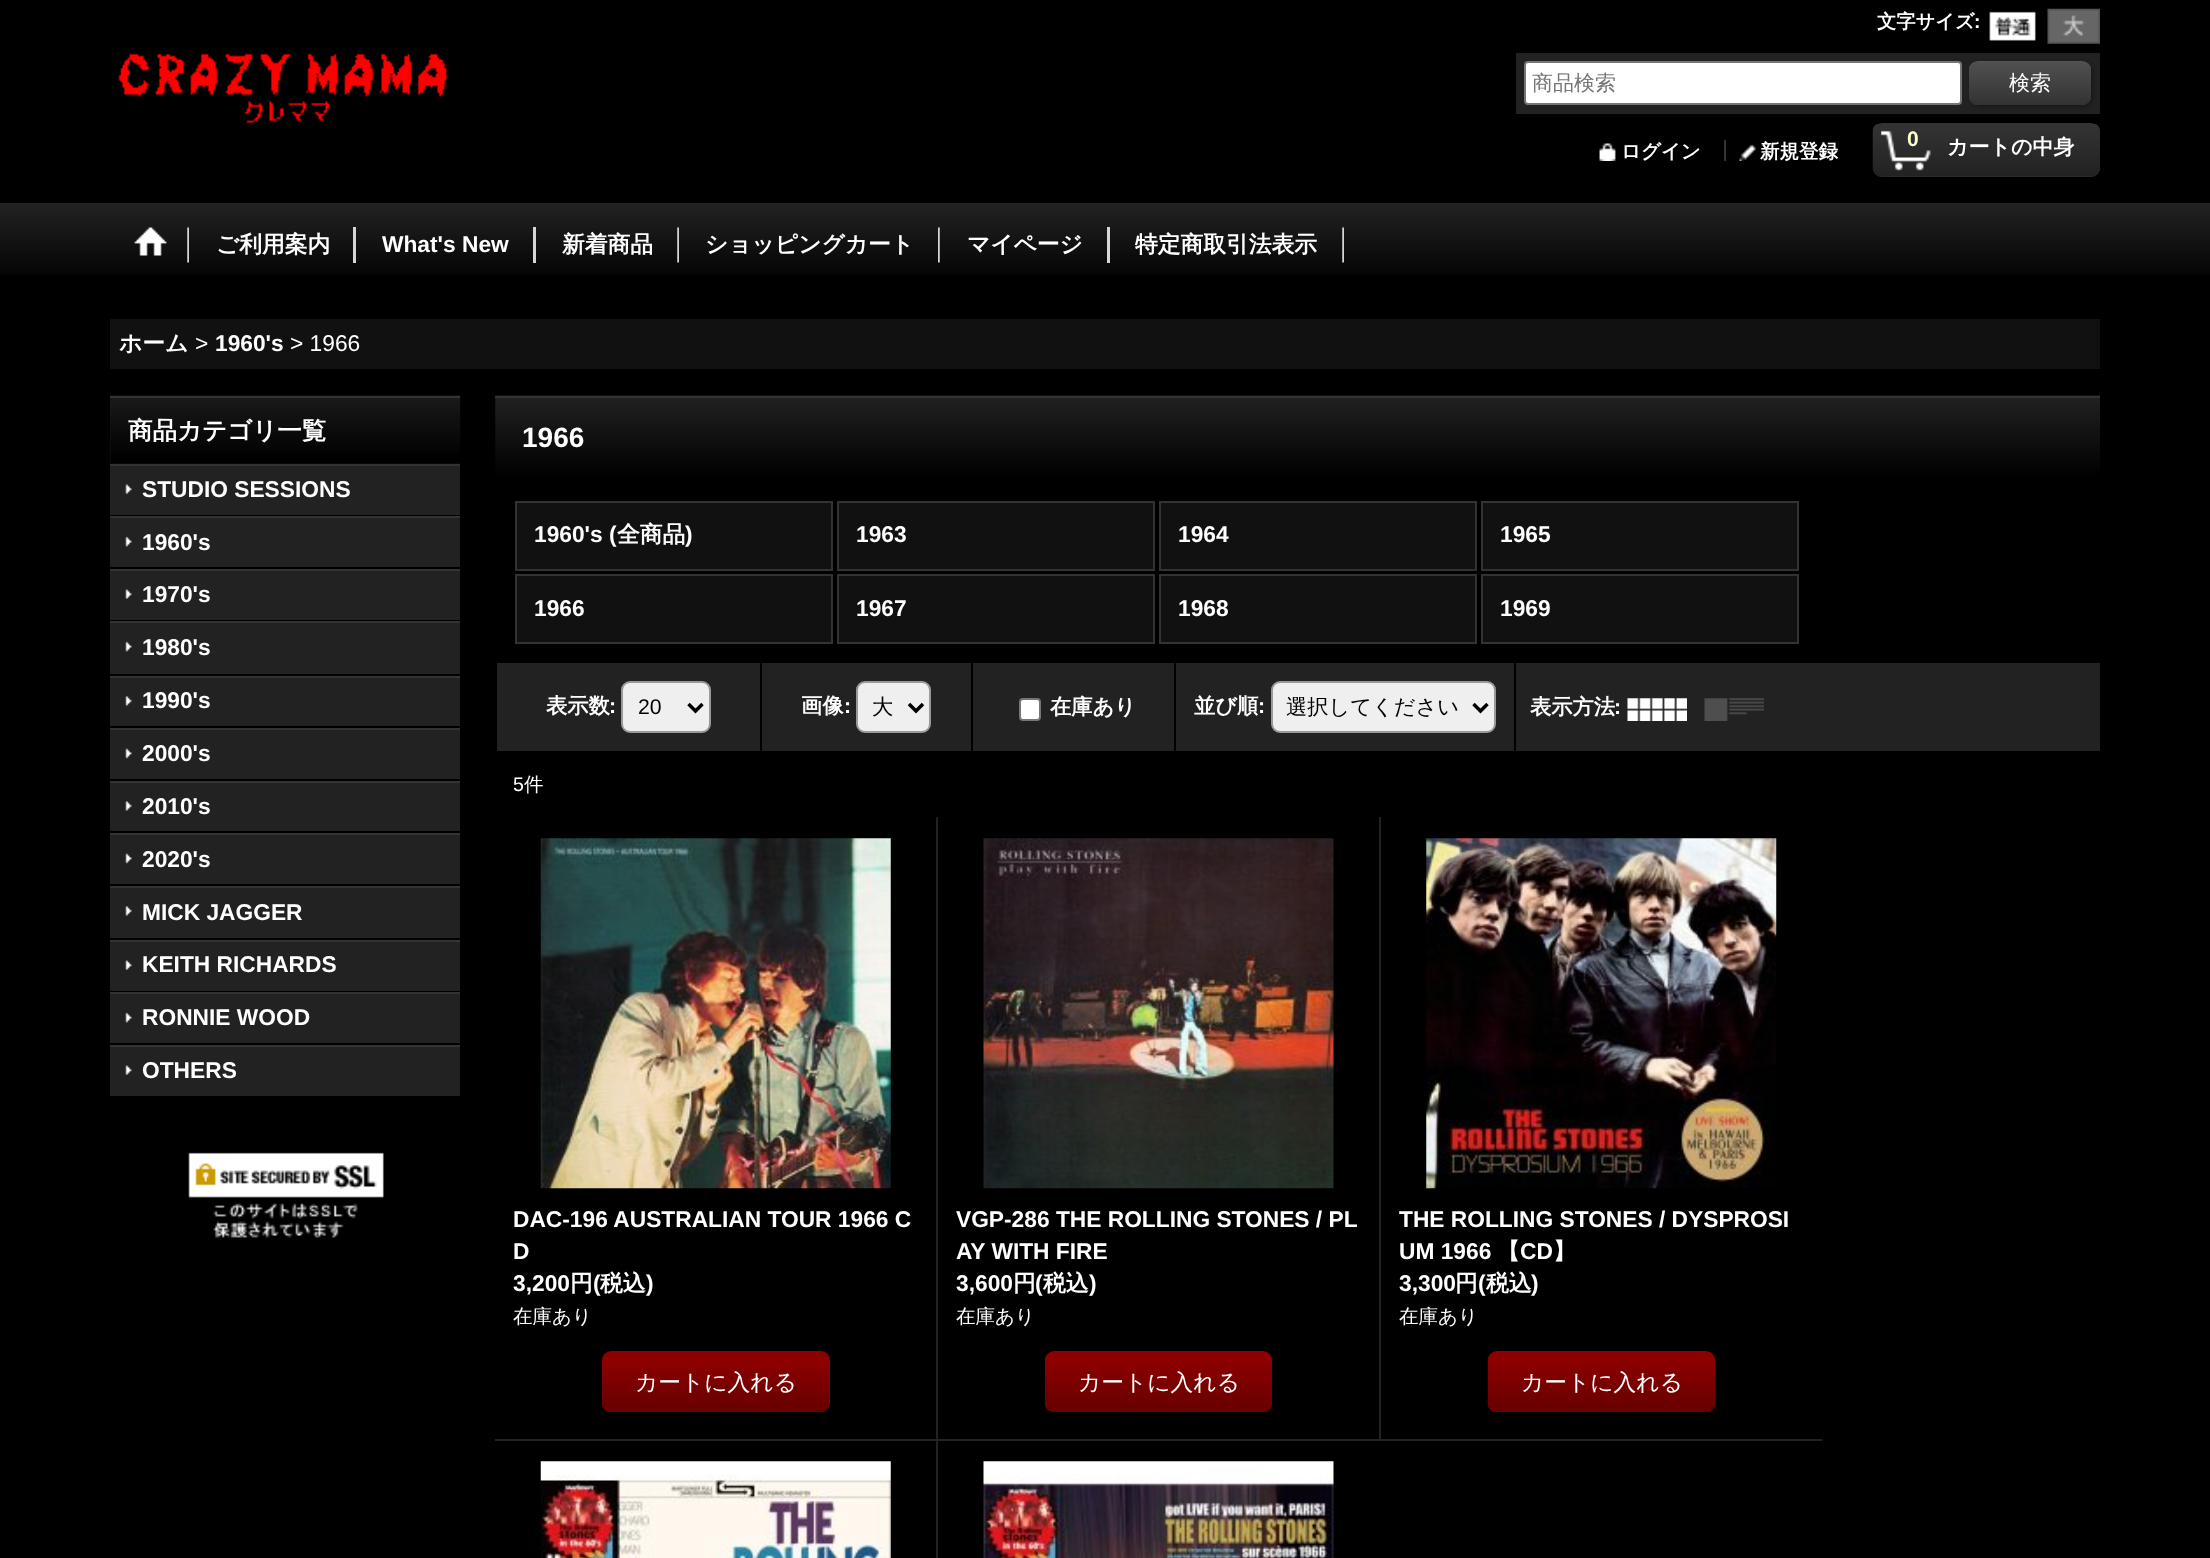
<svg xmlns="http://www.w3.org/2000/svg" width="2210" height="1558">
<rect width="100%" height="100%" fill="#000"/>
<text x="1877" y="28" style="font-family:WenQuanYi Zen Hei;font-size:19.25px;font-weight:bold;fill:#fff">文字サイズ</text>
<text x="1974" y="28" style="font-family:Liberation Sans;font-size:19.25px;font-weight:bold;fill:#fff">:</text>
<image x="1989" y="11" width="47" height="30" href="media/1.png"/>
<image x="2047" y="8" width="53" height="36" href="media/2.png"/>
<image x="118" y="53" width="329" height="70" href="media/3.png"/>
<rect x="1516" y="53" width="584" height="61" fill="#222"/>
<rect x="1525" y="62" width="436" height="42" rx="3" fill="#fff" stroke="#767676" stroke-width="2"/>
<text x="1532" y="90" style="font-family:WenQuanYi Zen Hei;font-size:21px;font-weight:500;fill:#757575">商品検索</text>
<rect x="1971" y="63" width="122" height="44" rx="9" fill="#0000004d" filter="blur(2px)"/>
<rect x="1969" y="61" width="122" height="44" rx="9" fill="#555"/>
<image x="1969" y="62" width="122" height="43" href="media/4.png"/>
<text x="2009" y="90" style="font-family:WenQuanYi Zen Hei;font-size:21px;font-weight:500;fill:#fff">検索</text>
<image x="1599" y="143" width="17" height="18" href="media/5.png"/>
<text x="1621" y="158" style="font-family:WenQuanYi Zen Hei;font-size:19.5px;font-weight:bold;fill:#fff">ログイン</text>
<rect x="1724" y="140" width="2" height="21" fill="#333"/>
<image x="1739" y="144" width="17" height="17" href="media/6.png"/>
<text x="1760" y="158" style="font-family:WenQuanYi Zen Hei;font-size:19.5px;font-weight:bold;fill:#fff">新規登録</text>
<rect x="1873" y="123" width="227" height="54" rx="9" fill="#333"/>
<image x="1872" y="124" width="228" height="53" href="media/7.png"/>
<image x="1881" y="130" width="50" height="41" href="media/8.png"/>
<text x="1907" y="146" style="font-family:Liberation Sans;font-size:21px;font-weight:bold;fill:#ffc">0</text>
<text x="1947" y="154" style="font-family:WenQuanYi Zen Hei;font-size:21px;font-weight:bold;fill:#fff">カートの中身</text>
<image x="0" y="203" width="2210" height="72" href="media/9.png"/>
<image x="187" y="227" width="2" height="36" href="media/10.png"/>
<image x="134" y="227" width="33" height="29" href="media/11.png"/>
<rect x="353" y="227" width="3" height="36" fill="#d6d6d6"/>
<text x="216" y="252" style="font-family:WenQuanYi Zen Hei;font-size:22.75px;font-weight:bold;fill:#fff">ご利用案内</text>
<rect x="533" y="227" width="3" height="36" fill="#d6d6d6"/>
<text x="382" y="252" style="font-family:Liberation Sans;font-size:22.75px;font-weight:bold;fill:#fff">What's New</text>
<image x="677" y="227" width="2" height="36" href="media/10.png"/>
<text x="562" y="252" style="font-family:WenQuanYi Zen Hei;font-size:22.75px;font-weight:bold;fill:#fff">新着商品</text>
<image x="938" y="227" width="2" height="36" href="media/12.png"/>
<text x="705" y="252" style="font-family:WenQuanYi Zen Hei;font-size:22.75px;font-weight:bold;fill:#fff">ショッピングカート</text>
<rect x="1107" y="227" width="3" height="36" fill="#d6d6d6"/>
<text x="967" y="252" style="font-family:WenQuanYi Zen Hei;font-size:22.75px;font-weight:bold;fill:#fff">マイページ</text>
<image x="1342" y="227" width="2" height="36" href="media/10.png"/>
<text x="1135" y="252" style="font-family:WenQuanYi Zen Hei;font-size:22.75px;font-weight:bold;fill:#fff">特定商取引法表示</text>
<rect x="110" y="319" width="1990" height="50" fill="#111"/>
<text x="119" y="351" style="font-family:WenQuanYi Zen Hei;font-size:22.75px;font-weight:bold;fill:#fff">ホーム</text>
<text x="195" y="351" style="font-family:Liberation Sans;font-size:22.75px;fill:#fff">&gt;</text>
<text x="215" y="351" style="font-family:Liberation Sans;font-size:22.75px;font-weight:bold;fill:#fff">1960's</text>
<text x="290" y="351" style="font-family:Liberation Sans;font-size:22.75px;fill:#fff">&gt; 1966</text>
<rect x="110" y="398" width="350" height="66" fill="#222"/>
<image x="110" y="395" width="351" height="69" href="media/13.png"/>
<rect x="110" y="396" width="350" height="2" fill="#333"/>
<text x="128" y="439" style="font-family:WenQuanYi Zen Hei;font-size:24.5px;font-weight:bold;fill:#fff">商品カテゴリ一覧</text>
<rect x="110" y="466" width="350" height="49" fill="#222"/>
<rect x="110" y="464" width="350" height="2" fill="#333"/>
<image x="125" y="484" width="7" height="10" href="media/14.png"/>
<text x="142" y="497" style="font-family:Liberation Sans;font-size:22.75px;font-weight:bold;fill:#fff">STUDIO SESSIONS</text>
<rect x="110" y="518" width="350" height="49" fill="#222"/>
<rect x="110" y="516" width="350" height="2" fill="#333"/>
<image x="125" y="536" width="7" height="11" href="media/15.png"/>
<text x="142" y="550" style="font-family:Liberation Sans;font-size:22.75px;font-weight:bold;fill:#fff">1960's</text>
<rect x="110" y="571" width="350" height="49" fill="#222"/>
<rect x="110" y="569" width="350" height="2" fill="#333"/>
<image x="125" y="589" width="7" height="10" href="media/14.png"/>
<text x="142" y="602" style="font-family:Liberation Sans;font-size:22.75px;font-weight:bold;fill:#fff">1970's</text>
<rect x="110" y="623" width="350" height="51" fill="#222"/>
<rect x="110" y="621" width="350" height="2" fill="#333"/>
<image x="125" y="641" width="7" height="11" href="media/15.png"/>
<text x="142" y="655" style="font-family:Liberation Sans;font-size:22.75px;font-weight:bold;fill:#fff">1980's</text>
<rect x="110" y="678" width="350" height="48" fill="#222"/>
<rect x="110" y="676" width="350" height="2" fill="#333"/>
<image x="125" y="696" width="7" height="10" href="media/16.png"/>
<text x="142" y="708" style="font-family:Liberation Sans;font-size:22.75px;font-weight:bold;fill:#fff">1990's</text>
<rect x="110" y="730" width="350" height="49" fill="#222"/>
<rect x="110" y="728" width="350" height="2" fill="#333"/>
<image x="125" y="748" width="7" height="11" href="media/17.png"/>
<text x="142" y="761" style="font-family:Liberation Sans;font-size:22.75px;font-weight:bold;fill:#fff">2000's</text>
<rect x="110" y="783" width="350" height="48" fill="#222"/>
<rect x="110" y="781" width="350" height="2" fill="#333"/>
<image x="125" y="801" width="7" height="10" href="media/16.png"/>
<text x="142" y="814" style="font-family:Liberation Sans;font-size:22.75px;font-weight:bold;fill:#fff">2010's</text>
<rect x="110" y="835" width="350" height="49" fill="#222"/>
<rect x="110" y="833" width="350" height="2" fill="#333"/>
<image x="125" y="853" width="7" height="11" href="media/17.png"/>
<text x="142" y="867" style="font-family:Liberation Sans;font-size:22.75px;font-weight:bold;fill:#fff">2020's</text>
<rect x="110" y="888" width="350" height="50" fill="#222"/>
<rect x="110" y="886" width="350" height="2" fill="#333"/>
<image x="125" y="906" width="7" height="10" href="media/16.png"/>
<text x="142" y="920" style="font-family:Liberation Sans;font-size:22.75px;font-weight:bold;fill:#fff">MICK JAGGER</text>
<rect x="110" y="942" width="350" height="49" fill="#222"/>
<rect x="110" y="940" width="350" height="2" fill="#333"/>
<image x="125" y="960" width="7" height="10" href="media/14.png"/>
<text x="142" y="972" style="font-family:Liberation Sans;font-size:22.75px;font-weight:bold;fill:#fff">KEITH RICHARDS</text>
<rect x="110" y="994" width="350" height="49" fill="#222"/>
<rect x="110" y="992" width="350" height="2" fill="#333"/>
<image x="125" y="1012" width="7" height="11" href="media/15.png"/>
<text x="142" y="1025" style="font-family:Liberation Sans;font-size:22.75px;font-weight:bold;fill:#fff">RONNIE WOOD</text>
<rect x="110" y="1047" width="350" height="49" fill="#222"/>
<rect x="110" y="1045" width="350" height="2" fill="#333"/>
<image x="125" y="1065" width="7" height="10" href="media/14.png"/>
<text x="142" y="1078" style="font-family:Liberation Sans;font-size:22.75px;font-weight:bold;fill:#fff">OTHERS</text>
<image x="188" y="1152" width="196" height="86" href="media/18.png"/>
<image x="495" y="395" width="1605" height="86" href="media/19.png"/>
<rect x="495" y="396" width="1605" height="2" fill="#333"/>
<text x="522" y="447" style="font-family:Liberation Sans;font-size:28px;font-weight:bold;fill:#fff">1966</text>
<rect x="516" y="502" width="316" height="68" fill="#111" stroke="#333" stroke-width="2"/>
<text x="534" y="542" style="font-family:Liberation Sans;font-size:22.75px;font-weight:bold;fill:#fff">1960's (</text>
<text x="617" y="542" style="font-family:WenQuanYi Zen Hei;font-size:22.75px;font-weight:bold;fill:#fff">全商品</text>
<text x="685" y="542" style="font-family:Liberation Sans;font-size:22.75px;font-weight:bold;fill:#fff">)</text>
<rect x="838" y="502" width="316" height="68" fill="#111" stroke="#333" stroke-width="2"/>
<text x="856" y="542" style="font-family:Liberation Sans;font-size:22.75px;font-weight:bold;fill:#fff">1963</text>
<rect x="1160" y="502" width="316" height="68" fill="#111" stroke="#333" stroke-width="2"/>
<text x="1178" y="542" style="font-family:Liberation Sans;font-size:22.75px;font-weight:bold;fill:#fff">1964</text>
<rect x="1482" y="502" width="316" height="68" fill="#111" stroke="#333" stroke-width="2"/>
<text x="1500" y="542" style="font-family:Liberation Sans;font-size:22.75px;font-weight:bold;fill:#fff">1965</text>
<rect x="516" y="575" width="316" height="68" fill="#111" stroke="#333" stroke-width="2"/>
<text x="534" y="616" style="font-family:Liberation Sans;font-size:22.75px;font-weight:bold;fill:#fff">1966</text>
<rect x="838" y="575" width="316" height="68" fill="#111" stroke="#333" stroke-width="2"/>
<text x="856" y="616" style="font-family:Liberation Sans;font-size:22.75px;font-weight:bold;fill:#fff">1967</text>
<rect x="1160" y="575" width="316" height="68" fill="#111" stroke="#333" stroke-width="2"/>
<text x="1178" y="616" style="font-family:Liberation Sans;font-size:22.75px;font-weight:bold;fill:#fff">1968</text>
<rect x="1482" y="575" width="316" height="68" fill="#111" stroke="#333" stroke-width="2"/>
<text x="1500" y="616" style="font-family:Liberation Sans;font-size:22.75px;font-weight:bold;fill:#fff">1969</text>
<rect x="497" y="663" width="1603" height="88" fill="#222"/>
<text x="546" y="713" style="font-family:WenQuanYi Zen Hei;font-size:21.25px;font-weight:bold;fill:#fff">表示数</text>
<text x="609" y="713" style="font-family:Liberation Sans;font-size:21.25px;font-weight:bold;fill:#fff">:</text>
<rect x="622" y="682" width="88" height="50" rx="8" fill="#efefef" stroke="#999" stroke-width="2"/>
<path d="M688.5 704l7 7l7-7" fill="none" stroke="#000" stroke-width="3.5"/>
<text x="638" y="714" style="font-family:Liberation Sans;font-size:21.25px;fill:#000">20</text>
<rect x="760" y="663" width="2" height="88" fill="#000"/>
<text x="801" y="713" style="font-family:WenQuanYi Zen Hei;font-size:21.25px;font-weight:bold;fill:#fff">画像</text>
<text x="844" y="713" style="font-family:Liberation Sans;font-size:21.25px;font-weight:bold;fill:#fff">:</text>
<rect x="857" y="682" width="73" height="50" rx="8" fill="#efefef" stroke="#999" stroke-width="2"/>
<path d="M909 704l7 7l7-7" fill="none" stroke="#000" stroke-width="3.5"/>
<text x="872" y="714" style="font-family:WenQuanYi Zen Hei;font-size:21.25px;font-weight:500;fill:#000">大</text>
<rect x="971" y="663" width="2" height="88" fill="#000"/>
<rect x="1020" y="699" width="20" height="21" rx="3" fill="#fff" stroke="#767676" stroke-width="2"/>
<text x="1050" y="714" style="font-family:WenQuanYi Zen Hei;font-size:21.25px;font-weight:bold;fill:#fff">在庫あり</text>
<rect x="1174" y="663" width="2" height="88" fill="#000"/>
<text x="1194" y="713" style="font-family:WenQuanYi Zen Hei;font-size:21.25px;font-weight:bold;fill:#fff">並び順</text>
<text x="1258" y="713" style="font-family:Liberation Sans;font-size:21.25px;font-weight:bold;fill:#fff">:</text>
<rect x="1272" y="682" width="223" height="50" rx="8" fill="#efefef" stroke="#999" stroke-width="2"/>
<path d="M1473.5 704l7 7l7-7" fill="none" stroke="#000" stroke-width="3.5"/>
<text x="1286" y="714" style="font-family:WenQuanYi Zen Hei;font-size:21.25px;font-weight:500;fill:#000">選択してください</text>
<rect x="1514" y="663" width="2" height="88" fill="#000"/>
<text x="1530" y="714" style="font-family:WenQuanYi Zen Hei;font-size:21.25px;font-weight:bold;fill:#fff">表示方法</text>
<text x="1614" y="714" style="font-family:Liberation Sans;font-size:21.25px;font-weight:bold;fill:#fff">:</text>
<image x="1627" y="698" width="60" height="23" href="media/20.png"/>
<image x="1704" y="698" width="60" height="23" href="media/21.png"/>
<text x="513" y="791" style="font-family:Liberation Sans;font-size:19.5px;fill:#fff">5</text>
<text x="524" y="791" style="font-family:WenQuanYi Zen Hei;font-size:19.5px;font-weight:500;fill:#fff">件</text>
<rect x="936" y="817" width="2" height="623" fill="#222"/>
<rect x="495" y="1439" width="443" height="2" fill="#222"/>
<image x="540" y="838" width="351" height="351" href="media/22.png"/>
<text x="513" y="1227" style="font-family:Liberation Sans;font-size:22.75px;font-weight:bold;fill:#fff">DAC-196 AUSTRALIAN TOUR 1966 C</text>
<text x="513" y="1259" style="font-family:Liberation Sans;font-size:22.75px;font-weight:bold;fill:#fff">D</text>
<text x="513" y="1291" style="font-family:Liberation Sans;font-size:22.75px;font-weight:bold;fill:#fff">3,200</text>
<text x="570" y="1291" style="font-family:WenQuanYi Zen Hei;font-size:22.75px;font-weight:bold;fill:#fff">円</text>
<text x="593" y="1291" style="font-family:Liberation Sans;font-size:22.75px;font-weight:bold;fill:#fff">(</text>
<text x="600" y="1291" style="font-family:WenQuanYi Zen Hei;font-size:22.75px;font-weight:bold;fill:#fff">税込</text>
<text x="646" y="1291" style="font-family:Liberation Sans;font-size:22.75px;font-weight:bold;fill:#fff">)</text>
<text x="513" y="1323" style="font-family:WenQuanYi Zen Hei;font-size:19.5px;font-weight:500;fill:#fff">在庫あり</text>
<rect x="602" y="1351" width="228" height="61" rx="9" fill="#8c0000"/>
<image x="602" y="1367" width="228" height="46" href="media/23.png"/>
<text x="635" y="1390" style="font-family:WenQuanYi Zen Hei;font-size:22.75px;font-weight:500;fill:#fff">カートに入れる</text>
<rect x="1379" y="817" width="2" height="623" fill="#222"/>
<rect x="938" y="1439" width="884" height="2" fill="#222"/>
<image x="983" y="838" width="351" height="351" href="media/24.png"/>
<text x="956" y="1227" style="font-family:Liberation Sans;font-size:22.75px;font-weight:bold;fill:#fff">VGP-286 THE ROLLING STONES / PL</text>
<text x="956" y="1259" style="font-family:Liberation Sans;font-size:22.75px;font-weight:bold;fill:#fff">AY WITH FIRE</text>
<text x="956" y="1291" style="font-family:Liberation Sans;font-size:22.75px;font-weight:bold;fill:#fff">3,600</text>
<text x="1013" y="1291" style="font-family:WenQuanYi Zen Hei;font-size:22.75px;font-weight:bold;fill:#fff">円</text>
<text x="1035" y="1291" style="font-family:Liberation Sans;font-size:22.75px;font-weight:bold;fill:#fff">(</text>
<text x="1043" y="1291" style="font-family:WenQuanYi Zen Hei;font-size:22.75px;font-weight:bold;fill:#fff">税込</text>
<text x="1089" y="1291" style="font-family:Liberation Sans;font-size:22.75px;font-weight:bold;fill:#fff">)</text>
<text x="956" y="1323" style="font-family:WenQuanYi Zen Hei;font-size:19.5px;font-weight:500;fill:#fff">在庫あり</text>
<rect x="1045" y="1351" width="227" height="61" rx="9" fill="#8c0000"/>
<image x="1044" y="1360" width="229" height="53" href="media/25.png"/>
<text x="1078" y="1390" style="font-family:WenQuanYi Zen Hei;font-size:22.75px;font-weight:500;fill:#fff">カートに入れる</text>
<image x="1426" y="838" width="351" height="351" href="media/26.png"/>
<text x="1399" y="1227" style="font-family:Liberation Sans;font-size:22.75px;font-weight:bold;fill:#fff">THE ROLLING STONES / DYSPROSI</text>
<text x="1399" y="1259" style="font-family:Liberation Sans;font-size:22.75px;font-weight:bold;fill:#fff">UM 1966</text>
<text x="1497" y="1259" style="font-family:WenQuanYi Zen Hei;font-size:22.75px;font-weight:bold;fill:#fff">【</text>
<text x="1520" y="1259" style="font-family:Liberation Sans;font-size:22.75px;font-weight:bold;fill:#fff">CD</text>
<text x="1553" y="1259" style="font-family:WenQuanYi Zen Hei;font-size:22.75px;font-weight:bold;fill:#fff">】</text>
<text x="1399" y="1291" style="font-family:Liberation Sans;font-size:22.75px;font-weight:bold;fill:#fff">3,300</text>
<text x="1455" y="1291" style="font-family:WenQuanYi Zen Hei;font-size:22.75px;font-weight:bold;fill:#fff">円</text>
<text x="1478" y="1291" style="font-family:Liberation Sans;font-size:22.75px;font-weight:bold;fill:#fff">(</text>
<text x="1486" y="1291" style="font-family:WenQuanYi Zen Hei;font-size:22.75px;font-weight:bold;fill:#fff">税込</text>
<text x="1531" y="1291" style="font-family:Liberation Sans;font-size:22.75px;font-weight:bold;fill:#fff">)</text>
<text x="1399" y="1323" style="font-family:WenQuanYi Zen Hei;font-size:19.5px;font-weight:500;fill:#fff">在庫あり</text>
<rect x="1488" y="1351" width="227" height="61" rx="9" fill="#8c0000"/>
<image x="1487" y="1359" width="228" height="54" href="media/27.png"/>
<text x="1521" y="1390" style="font-family:WenQuanYi Zen Hei;font-size:22.75px;font-weight:500;fill:#fff">カートに入れる</text>
<rect x="936" y="1440" width="2" height="118" fill="#222"/>
<image x="540" y="1461" width="351" height="97" href="media/28.png"/>
<image x="983" y="1461" width="351" height="97" href="media/29.png"/>
</svg>
